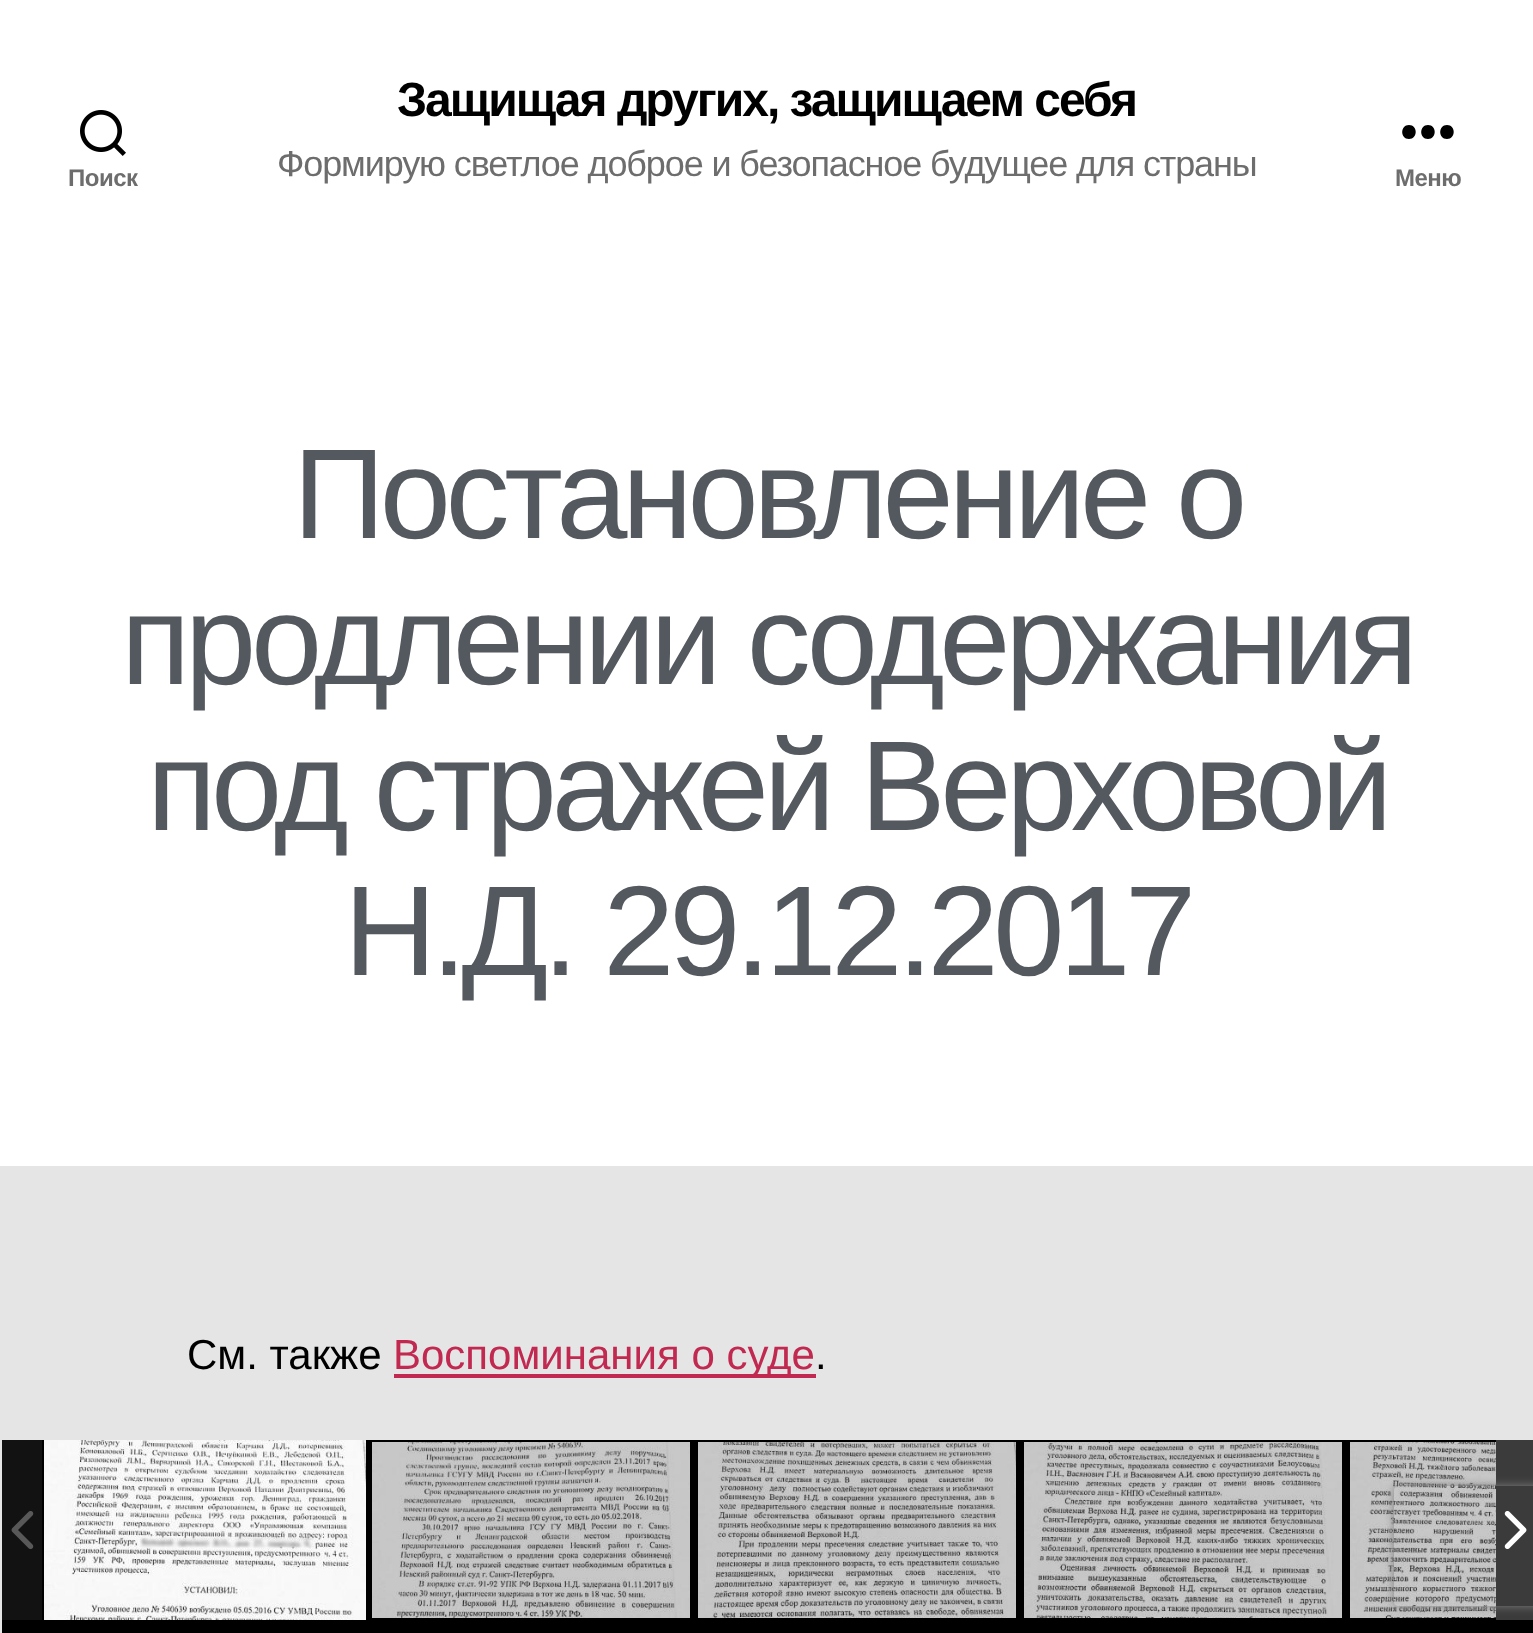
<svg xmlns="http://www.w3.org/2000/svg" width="1533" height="1633">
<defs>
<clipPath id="clip1"><path d="M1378 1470h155v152h-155zm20 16h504c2 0 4 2 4 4v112c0 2-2 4-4 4h-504c-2 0-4-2-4-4v-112c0-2 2-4 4-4z" clip-rule="evenodd"/></clipPath>
</defs>
<rect width="100%" height="100%" fill="#e5e5e5"/>
<rect width="1533" height="1166" fill="#fff"/>
<image x="80" y="110" width="46" height="46" href="media/1.png"/>
<text x="68" y="186" style="font-family:Liberation Sans;font-size:24px;font-weight:bold;letter-spacing:-0.5px;fill:#6d6d6d">Поиск</text>
<text x="397" y="116" style="font-family:Liberation Sans;font-size:48px;font-weight:bold;letter-spacing:-2px;fill:#000">Защищая других, защищаем себя</text>
<text x="277" y="176" style="font-family:Liberation Sans;font-size:36px;letter-spacing:-1.12px;fill:#6d6d6d">Формирую светлое доброе и безопасное будущее для страны</text>
<path d="M1409 139c-9 0-9-14 0-14c9 0 9 14 0 14zm19 0c-9 0-9-14 0-14c9 0 9 14 0 14zm19 0c-9 0-9-14 0-14c9 0 9 14 0 14z" fill="#000" fill-rule="evenodd"/>
<text x="1395" y="186" style="font-family:Liberation Sans;font-size:24px;font-weight:bold;letter-spacing:-0.5px;fill:#6d6d6d">Меню</text>
<text x="293" y="538" style="font-family:Liberation Sans;font-size:128px;letter-spacing:-5.3px;fill:#54595f">Постановление о</text>
<text x="121" y="684" style="font-family:Liberation Sans;font-size:128px;letter-spacing:-5.3px;fill:#54595f">продлении содержания</text>
<text x="147" y="830" style="font-family:Liberation Sans;font-size:128px;letter-spacing:-5.3px;fill:#54595f">под стражей Верховой</text>
<text x="344" y="975" style="font-family:Liberation Sans;font-size:128px;letter-spacing:-5.3px;fill:#54595f">Н.Д. 29.12.2017</text>
<text x="187" y="1369" style="font-family:Liberation Sans;font-size:42px;fill:#000">См. также</text>
<rect x="394" y="1374" width="422" height="4" fill="#c12951"/>
<text x="393" y="1369" style="font-family:Liberation Sans;font-size:42px;fill:#c12951">Воспоминания о суде</text>
<text x="815" y="1369" style="font-family:Liberation Sans;font-size:42px;fill:#000">.</text>
<rect x="2" y="1440" width="1531" height="193" fill="#000"/>
<rect x="2" y="1440" width="40" height="180" fill="#121212"/>
<image x="11" y="1511" width="23" height="38" href="media/2.png"/>
<image x="44" y="1440" width="322" height="180" href="media/3.png"/>
<image x="372" y="1442" width="318" height="176" href="media/4.png"/>
<image x="698" y="1442" width="318" height="176" href="media/5.png"/>
<image x="1024" y="1442" width="318" height="176" href="media/6.png"/>
<image x="1350" y="1442" width="146" height="176" href="media/7.png"/>
<rect x="1496" y="1440" width="37" height="180" fill="#3b3b3b"/>
<image x="1504" y="1511" width="23" height="38" href="media/8.png"/>
<g clip-path="url(#clip1)">
<rect x="1394" y="1486" width="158" height="120" rx="4" fill="#808080" filter="blur(5px)"/>
</g>
</svg>
